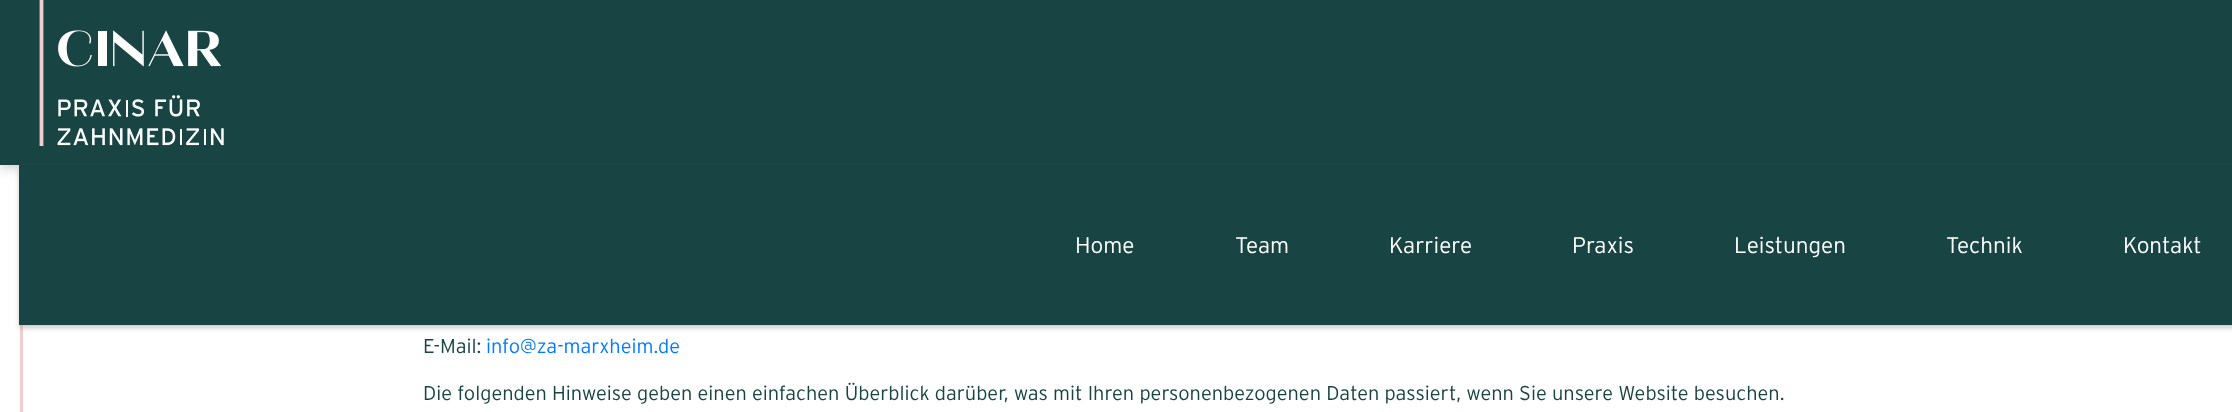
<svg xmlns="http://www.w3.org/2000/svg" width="2232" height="412">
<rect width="100%" height="100%" fill="#fff"/>
<rect y="3" width="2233" height="165" fill="#9c9c9c80" filter="blur(5.5px)"/>
<rect width="2232" height="165" fill="#194444"/>
<image x="39" y="0" width="185" height="146" href="media/1.png"/>
<rect x="20" y="325" width="3" height="87" fill="#f1cdcd"/>
<rect x="19" y="168" width="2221" height="160" fill="#96969680" filter="blur(2.5px)"/>
<rect x="19" y="165" width="2213" height="160" fill="#194444"/>
<text x="1075" y="253" style="font-family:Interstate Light;font-size:22.5px;font-weight:300;fill:#fff">Home</text>
<text x="1235" y="253" style="font-family:Interstate Light;font-size:22.5px;font-weight:300;fill:#fff">Team</text>
<text x="1389" y="253" style="font-family:Interstate Light;font-size:22.5px;font-weight:300;fill:#fff">Karriere</text>
<text x="1572" y="253" style="font-family:Interstate Light;font-size:22.5px;font-weight:300;fill:#fff">Praxis</text>
<text x="1734" y="253" style="font-family:Interstate Light;font-size:22.5px;font-weight:300;fill:#fff">Leistungen</text>
<text x="1946" y="253" style="font-family:Interstate Light;font-size:22.5px;font-weight:300;fill:#fff">Technik</text>
<text x="2123" y="253" style="font-family:Interstate Light;font-size:22.5px;font-weight:300;fill:#fff">Kontakt</text>
<text x="423" y="353" style="font-family:Interstate Light;font-size:20px;font-weight:300;fill:#194444">E-Mail:</text>
<text x="486" y="353" style="font-family:Interstate Light;font-size:20px;font-weight:300;fill:#007bff">info@za-marxheim.de</text>
<text x="423" y="400" style="font-family:Interstate Light;font-size:20px;font-weight:300;fill:#194444">Die folgenden Hinweise geben einen einfachen Überblick darüber, was mit Ihren personenbezogenen Daten passiert, wenn Sie unsere Website besuchen.</text>
</svg>
